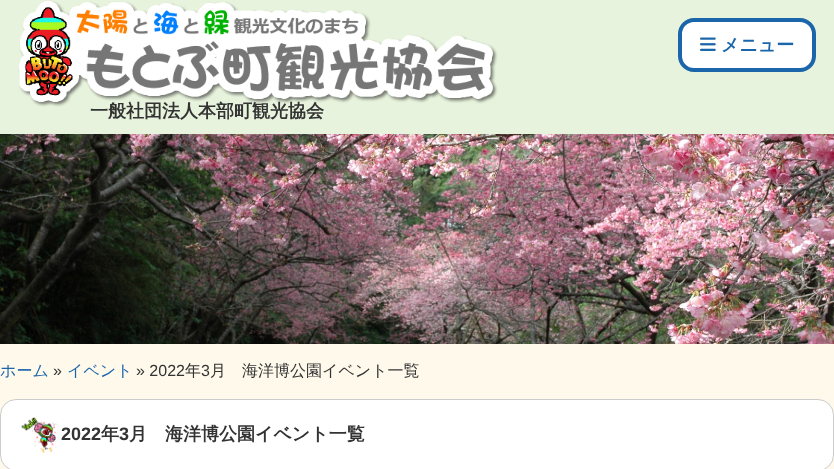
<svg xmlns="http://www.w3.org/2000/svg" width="834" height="469">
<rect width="100%" height="100%" fill="#fff9eb"/>
<rect width="834" height="134" fill="#e7f3dc"/>
<rect x="680" y="20" width="134" height="50" rx="14" fill="#fff" stroke="#1b66ab" stroke-width="4"/>
<image x="700" y="37" width="16" height="14" href="media/1.png"/>
<text x="721" y="51" style="font-family:WenQuanYi Zen Hei;font-size:18px;font-weight:bold;fill:#1b66ab">メニュー</text>
<image x="18" y="0" width="480" height="107" href="media/2.png"/>
<text x="90" y="117" style="font-family:WenQuanYi Zen Hei;font-size:18px;font-weight:bold;fill:#333">一般社団法人本部町観光協会</text>
<image x="0" y="134" width="834" height="210" href="media/3.png"/>
<text x="0" y="376" style="font-family:WenQuanYi Zen Hei;font-size:16px;font-weight:500;fill:#1b66ab">ホーム</text>
<text x="53" y="376" style="font-family:Liberation Sans;font-size:16px;fill:#333">»</text>
<text x="67" y="376" style="font-family:WenQuanYi Zen Hei;font-size:16px;font-weight:500;fill:#1b66ab">イベント</text>
<text x="136" y="376" style="font-family:Liberation Sans;font-size:16px;fill:#333">» 2022</text>
<text x="185" y="376" style="font-family:WenQuanYi Zen Hei;font-size:16px;font-weight:500;fill:#333">年</text>
<text x="201" y="376" style="font-family:Liberation Sans;font-size:16px;fill:#333">3</text>
<text x="210" y="376" style="font-family:WenQuanYi Zen Hei;font-size:16px;font-weight:500;fill:#333">月　海洋博公園イベント一覧</text>
<rect x="0.5" y="399.5" width="833" height="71" rx="15.5" fill="#fff" stroke="#ccc"/>
<image x="21" y="417" width="36" height="36" href="media/4.png"/>
<text x="61" y="440" style="font-family:Liberation Sans;font-size:18px;font-weight:bold;fill:#333">2022</text>
<text x="101" y="440" style="font-family:WenQuanYi Zen Hei;font-size:18px;font-weight:bold;fill:#333">年</text>
<text x="119" y="440" style="font-family:Liberation Sans;font-size:18px;font-weight:bold;fill:#333">3</text>
<text x="129" y="440" style="font-family:WenQuanYi Zen Hei;font-size:18px;font-weight:bold;fill:#333">月　海洋博公園イベント一覧</text>
</svg>
